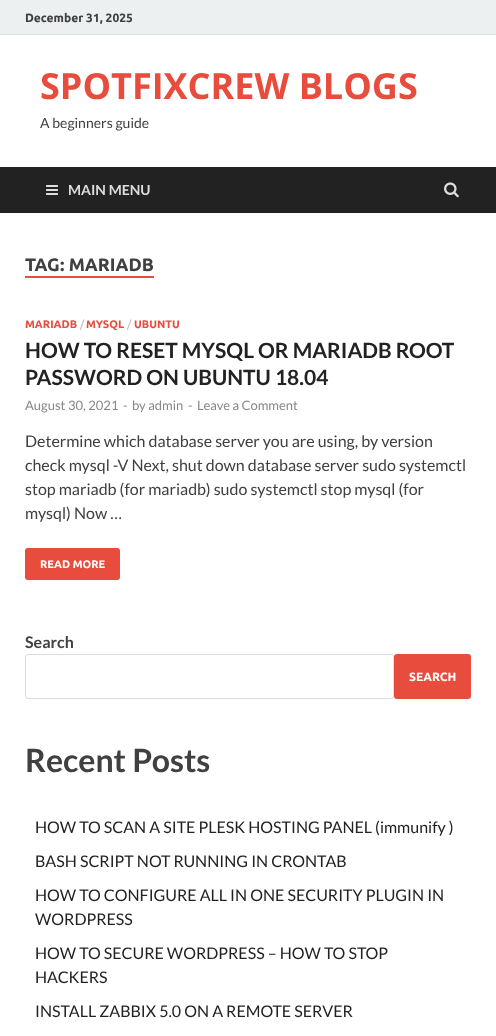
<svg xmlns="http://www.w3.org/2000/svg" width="496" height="1036">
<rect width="100%" height="100%" fill="#fff"/>
<rect width="496" height="34" fill="#ecf0f1"/>
<rect y="34" width="496" height="1" fill="#ddd"/>
<text x="25" y="22" style="font-family:Ubuntu;font-size:12px;font-weight:bold;fill:#404040">December 31, 2025</text>
<text x="40" y="99" style="font-family:Open Sans;font-size:36px;font-weight:bold;fill:#e74c3c">SPOTFIXCREW BLOGS</text>
<text x="40" y="128" style="font-family:Lato;font-size:14px;fill:#404040">A beginners guide</text>
<rect y="167" width="496" height="46" fill="#222"/>
<image x="46" y="185" width="12" height="10" href="media/1.png"/>
<text x="68" y="195" style="font-family:Lato;font-size:14px;font-weight:bold;fill:#ddd">MAIN MENU</text>
<image x="444" y="182" width="15" height="16" href="media/2.png"/>
<text x="25" y="271" style="font-family:Ubuntu;font-size:18px;font-weight:bold;fill:#404040">TAG: MARIADB</text>
<rect x="25" y="276" width="129" height="2" fill="#e74c3c"/>
<text x="25" y="328" style="font-family:Ubuntu;font-size:11px;font-weight:bold;fill:#e74c3c">MARIADB</text>
<text x="80" y="328" style="font-family:Ubuntu;font-size:11px;fill:#bbb">/</text>
<text x="86" y="328" style="font-family:Ubuntu;font-size:11px;font-weight:bold;fill:#e74c3c">MYSQL</text>
<text x="127" y="328" style="font-family:Ubuntu;font-size:11px;fill:#bbb">/</text>
<text x="134" y="328" style="font-family:Ubuntu;font-size:11px;font-weight:bold;fill:#e74c3c">UBUNTU</text>
<text x="25" y="358" style="font-family:Lato;font-size:21px;font-weight:bold;fill:#222">HOW TO RESET MYSQL OR MARIADB ROOT</text>
<text x="25" y="385" style="font-family:Lato;font-size:21px;font-weight:bold;fill:#222">PASSWORD ON UBUNTU 18.04</text>
<text x="25" y="410" style="font-family:Lato;font-size:13px;fill:#888">August 30, 2021</text>
<text x="123" y="410" style="font-family:Lato;font-size:13px;fill:#888">-</text>
<text x="132" y="410" style="font-family:Lato;font-size:13px;fill:#888">by admin</text>
<text x="188" y="410" style="font-family:Lato;font-size:13px;fill:#888">-</text>
<text x="197" y="410" style="font-family:Lato;font-size:13px;fill:#888">Leave a Comment</text>
<text x="25" y="447" style="font-family:Lato;font-size:16px;fill:#404040">Determine which database server you are using, by version</text>
<text x="25" y="471" style="font-family:Lato;font-size:16px;fill:#404040">check mysql -V Next, shut down database server sudo systemctl</text>
<text x="25" y="495" style="font-family:Lato;font-size:16px;fill:#404040">stop mariadb (for mariadb) sudo systemctl stop mysql (for</text>
<text x="25" y="519" style="font-family:Lato;font-size:16px;fill:#404040">mysql) Now …</text>
<rect x="25" y="548" width="95" height="32" rx="3" fill="#e74c3c"/>
<text x="40" y="568" style="font-family:Ubuntu;font-size:11px;font-weight:bold;fill:#fff">READ MORE</text>
<text x="25" y="648" style="font-family:Lato;font-size:16px;font-weight:bold;fill:#404040">Search</text>
<rect x="25.5" y="654.5" width="368" height="44" rx="2.5" fill="none" stroke="#ddd"/>
<rect x="394" y="654" width="77" height="45" rx="3" fill="#e74c3c"/>
<text x="409" y="681" style="font-family:Ubuntu;font-size:12px;font-weight:bold;fill:#fff">SEARCH</text>
<text x="25" y="772" style="font-family:Lato;font-size:32px;font-weight:bold;fill:#404040">Recent Posts</text>
<text x="35" y="833" style="font-family:Lato;font-size:16px;fill:#222">HOW TO SCAN A SITE PLESK HOSTING PANEL (immunify )</text>
<text x="35" y="867" style="font-family:Lato;font-size:16px;fill:#222">BASH SCRIPT NOT RUNNING IN CRONTAB</text>
<text x="35" y="901" style="font-family:Lato;font-size:16px;fill:#222">HOW TO CONFIGURE ALL IN ONE SECURITY PLUGIN IN</text>
<text x="35" y="925" style="font-family:Lato;font-size:16px;fill:#222">WORDPRESS</text>
<text x="35" y="959" style="font-family:Lato;font-size:16px;fill:#222">HOW TO SECURE WORDPRESS – HOW TO STOP</text>
<text x="35" y="983" style="font-family:Lato;font-size:16px;fill:#222">HACKERS</text>
<text x="35" y="1017" style="font-family:Lato;font-size:16px;fill:#222">INSTALL ZABBIX 5.0 ON A REMOTE SERVER</text>
</svg>
